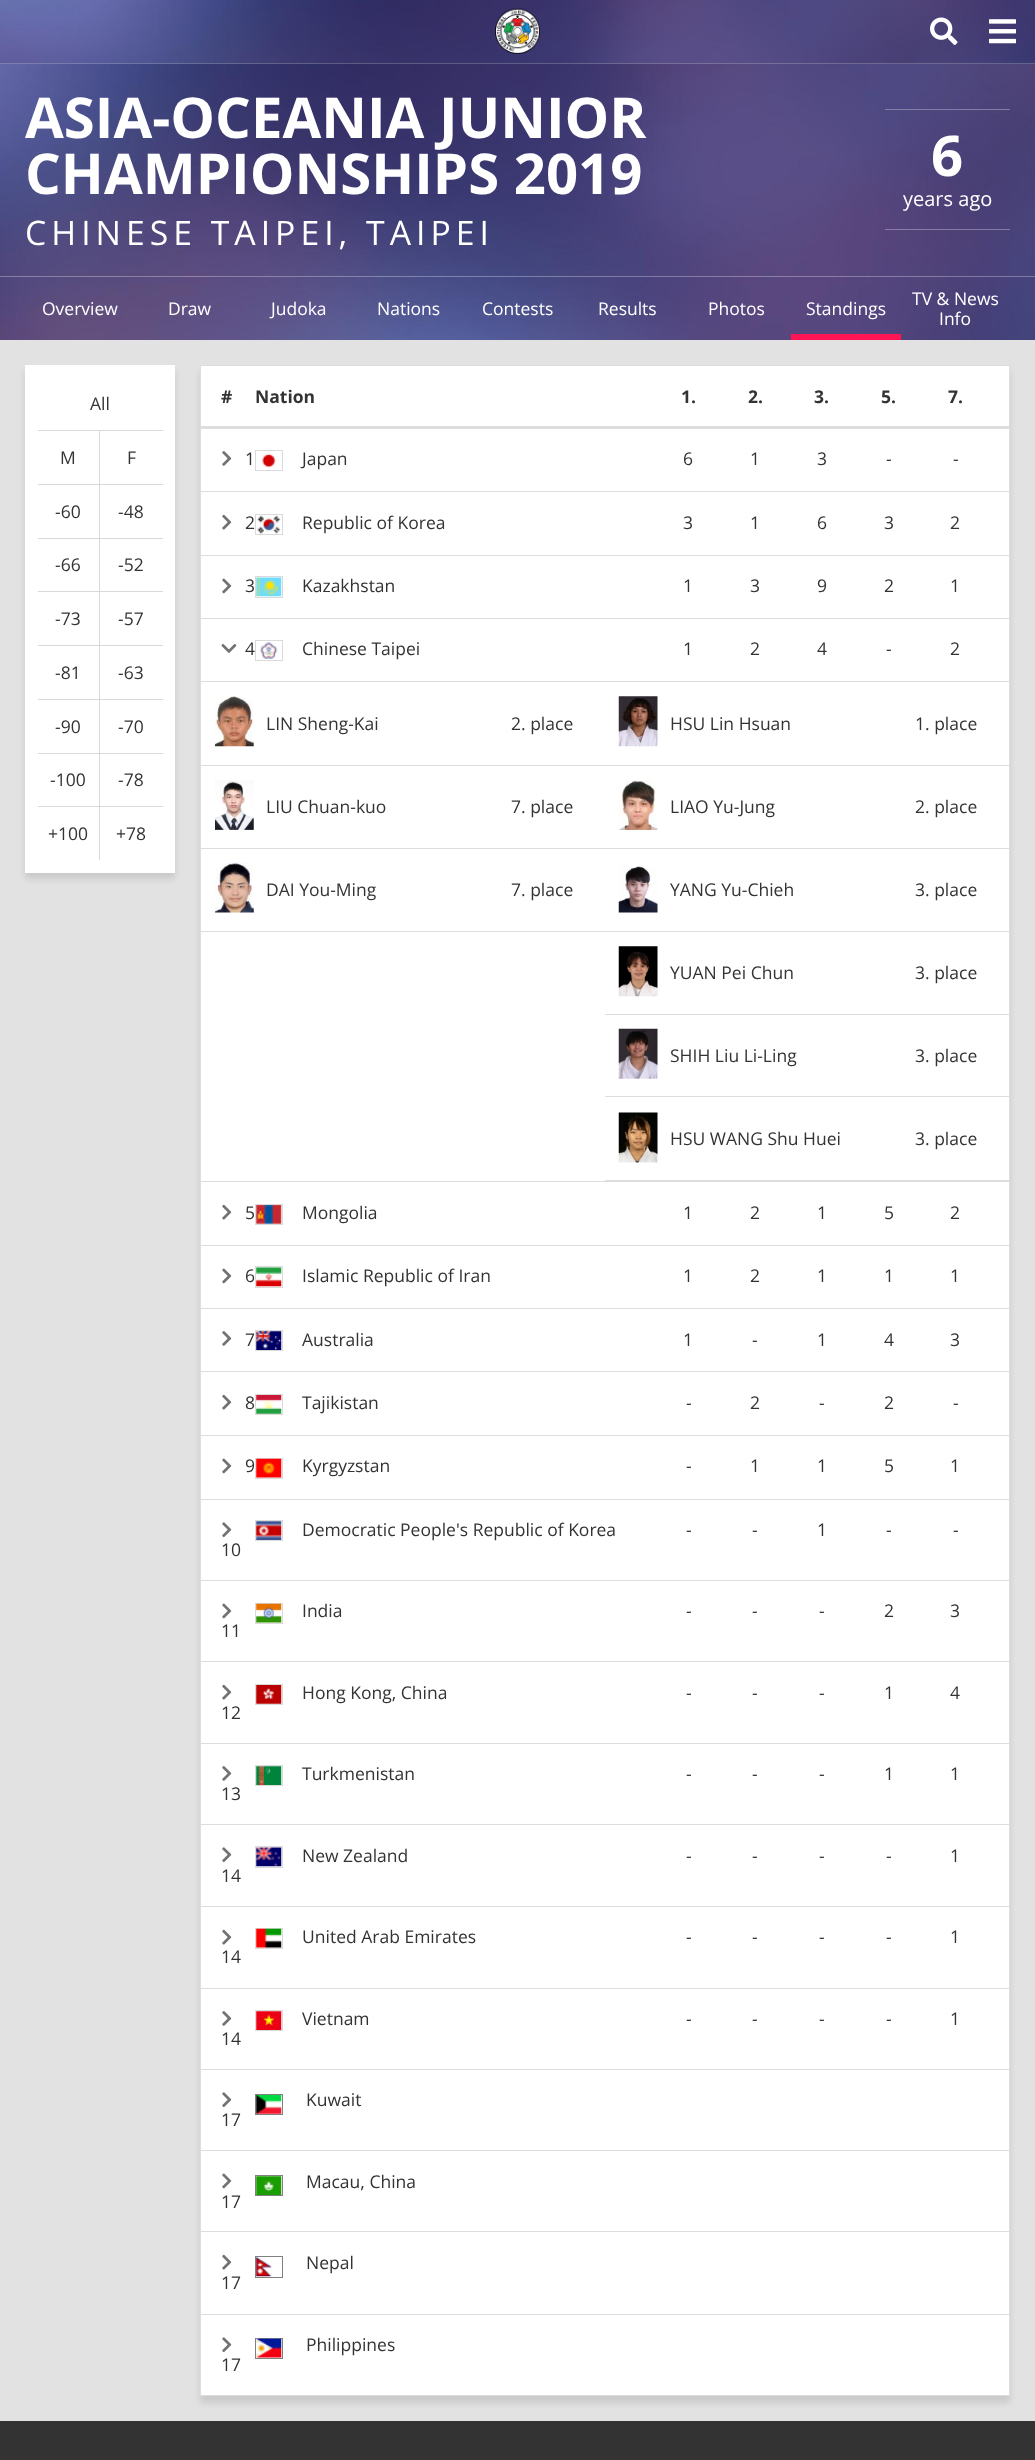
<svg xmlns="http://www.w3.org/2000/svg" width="1035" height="2460">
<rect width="100%" height="100%" fill="#e2e2e2"/>
<image x="0" y="63" width="1035" height="277" href="media/5.png"/>
<image x="0" y="0" width="1035" height="64" href="media/1.png"/>
<rect y="63" width="1035" height="1" fill="#ffffff33"/>
<image x="495" y="8" width="45" height="46" href="media/2.png"/>
<image x="930" y="17" width="28" height="28" href="media/3.png"/>
<image x="989" y="19" width="27" height="25" href="media/4.png"/>
<text x="25" y="138" style="font-family:Open Sans;font-size:56.25px;font-weight:bold;fill:#fff">ASIA-OCEANIA JUNIOR</text>
<text x="25" y="194" style="font-family:Open Sans;font-size:56.25px;font-weight:bold;fill:#fff">CHAMPIONSHIPS 2019</text>
<text x="25" y="245" style="font-family:Open Sans;font-size:33.75px;letter-spacing:5px;fill:#fff">CHINESE TAIPEI, TAIPEI</text>
<rect x="885" y="109" width="125" height="1" fill="#ffffff4d"/>
<rect x="885" y="229" width="125" height="1" fill="#ffffff4d"/>
<text x="931" y="176" style="font-family:Open Sans;font-size:56.25px;font-weight:bold;fill:#fff">6</text>
<text x="903" y="206" style="font-family:Open Sans;font-size:20px;fill:#fff">years ago</text>
<rect y="276" width="1035" height="1" fill="#ffffff4d"/>
<text x="42" y="315" style="font-family:Open Sans;font-size:17.5px;fill:#fff">Overview</text>
<text x="168" y="315" style="font-family:Open Sans;font-size:17.5px;fill:#fff">Draw</text>
<text x="271" y="315" style="font-family:Open Sans;font-size:17.5px;fill:#fff">Judoka</text>
<text x="377" y="315" style="font-family:Open Sans;font-size:17.5px;fill:#fff">Nations</text>
<text x="482" y="315" style="font-family:Open Sans;font-size:17.5px;fill:#fff">Contests</text>
<text x="598" y="315" style="font-family:Open Sans;font-size:17.5px;fill:#fff">Results</text>
<text x="708" y="315" style="font-family:Open Sans;font-size:17.5px;fill:#fff">Photos</text>
<text x="806" y="315" style="font-family:Open Sans;font-size:17.5px;fill:#fff">Standings</text>
<rect x="791" y="334" width="110" height="6" fill="#ff1553"/>
<text x="912" y="305" style="font-family:Open Sans;font-size:17.5px;fill:#fff">TV &amp; News</text>
<text x="939" y="325" style="font-family:Open Sans;font-size:17.5px;fill:#fff">Info</text>
<rect x="25" y="371" width="150" height="508" fill="#0000001a" filter="blur(3px)"/>
<rect x="25" y="365" width="150" height="508" fill="#fff"/>
<rect x="38" y="430" width="125" height="1" fill="#d9d9d9"/>
<text x="90" y="410" style="font-family:Open Sans;font-size:17.5px;fill:#333">All</text>
<rect x="99" y="431" width="1" height="429" fill="#d9d9d9"/>
<rect x="38" y="484" width="125" height="1" fill="#d9d9d9"/>
<text x="60" y="464" style="font-family:Open Sans;font-size:17.5px;fill:#333">M</text>
<text x="127" y="464" style="font-family:Open Sans;font-size:17.5px;fill:#333">F</text>
<rect x="38" y="538" width="125" height="1" fill="#d9d9d9"/>
<text x="55" y="518" style="font-family:Open Sans;font-size:17.5px;fill:#333">-60</text>
<text x="118" y="518" style="font-family:Open Sans;font-size:17.5px;fill:#333">-48</text>
<rect x="38" y="591" width="125" height="1" fill="#d9d9d9"/>
<text x="55" y="571" style="font-family:Open Sans;font-size:17.5px;fill:#333">-66</text>
<text x="118" y="571" style="font-family:Open Sans;font-size:17.5px;fill:#333">-52</text>
<rect x="38" y="645" width="125" height="1" fill="#d9d9d9"/>
<text x="55" y="625" style="font-family:Open Sans;font-size:17.5px;fill:#333">-73</text>
<text x="118" y="625" style="font-family:Open Sans;font-size:17.5px;fill:#333">-57</text>
<rect x="38" y="699" width="125" height="1" fill="#d9d9d9"/>
<text x="55" y="679" style="font-family:Open Sans;font-size:17.5px;fill:#333">-81</text>
<text x="118" y="679" style="font-family:Open Sans;font-size:17.5px;fill:#333">-63</text>
<rect x="38" y="753" width="125" height="1" fill="#d9d9d9"/>
<text x="55" y="733" style="font-family:Open Sans;font-size:17.5px;fill:#333">-90</text>
<text x="118" y="733" style="font-family:Open Sans;font-size:17.5px;fill:#333">-70</text>
<rect x="38" y="806" width="125" height="1" fill="#d9d9d9"/>
<text x="50" y="786" style="font-family:Open Sans;font-size:17.5px;fill:#333">-100</text>
<text x="118" y="786" style="font-family:Open Sans;font-size:17.5px;fill:#333">-78</text>
<text x="48" y="840" style="font-family:Open Sans;font-size:17.5px;fill:#333">+100</text>
<text x="116" y="840" style="font-family:Open Sans;font-size:17.5px;fill:#333">+78</text>
<rect x="200" y="371" width="810" height="2032" fill="#0000001a" filter="blur(3px)"/>
<rect x="201" y="366" width="808" height="2029" fill="#fff"/>
<rect x="200" y="365" width="810" height="1" fill="#ddd"/>
<rect x="1009" y="365" width="1" height="2031" fill="#ddd"/>
<rect x="200" y="426" width="810" height="3" fill="#ddd"/>
<rect x="200" y="365" width="1" height="64" fill="#ddd"/>
<text x="221" y="403" style="font-family:Open Sans;font-size:17.5px;font-weight:bold;fill:#333">#</text>
<text x="255" y="403" style="font-family:Open Sans;font-size:17.5px;font-weight:bold;fill:#333">Nation</text>
<text x="681" y="403" style="font-family:Open Sans;font-size:17.5px;font-weight:bold;fill:#333">1.</text>
<text x="748" y="403" style="font-family:Open Sans;font-size:17.5px;font-weight:bold;fill:#333">2.</text>
<text x="814" y="403" style="font-family:Open Sans;font-size:17.5px;font-weight:bold;fill:#333">3.</text>
<text x="881" y="403" style="font-family:Open Sans;font-size:17.5px;font-weight:bold;fill:#333">5.</text>
<text x="948" y="403" style="font-family:Open Sans;font-size:17.5px;font-weight:bold;fill:#333">7.</text>
<rect x="200" y="491" width="810" height="1" fill="#ddd"/>
<rect x="200" y="429" width="1" height="64" fill="#ddd"/>
<image x="222" y="451" width="10" height="15" href="media/6.png"/>
<text x="245" y="465" style="font-family:Open Sans;font-size:17.5px;fill:#333">1</text>
<rect x="255.5" y="450.5" width="27" height="20" fill="none" stroke="#dadada"/>
<image x="262" y="453" width="14" height="15" href="media/7.png"/>
<text x="302" y="465" style="font-family:Open Sans;font-size:17.5px;fill:#333">Japan</text>
<text x="683" y="465" style="font-family:Open Sans;font-size:17.5px;fill:#333">6</text>
<text x="750" y="465" style="font-family:Open Sans;font-size:17.5px;fill:#333">1</text>
<text x="817" y="465" style="font-family:Open Sans;font-size:17.5px;fill:#333">3</text>
<text x="886" y="465" style="font-family:Open Sans;font-size:17.5px;fill:#333">-</text>
<text x="953" y="465" style="font-family:Open Sans;font-size:17.5px;fill:#333">-</text>
<rect x="200" y="555" width="810" height="1" fill="#ddd"/>
<rect x="200" y="493" width="1" height="63" fill="#ddd"/>
<image x="222" y="514" width="10" height="16" href="media/8.png"/>
<text x="245" y="529" style="font-family:Open Sans;font-size:17.5px;fill:#333">2</text>
<rect x="255.5" y="514.5" width="27" height="20" fill="none" stroke="#dadada"/>
<image x="257" y="515" width="24" height="19" href="media/9.png"/>
<text x="302" y="529" style="font-family:Open Sans;font-size:17.5px;fill:#333">Republic of Korea</text>
<text x="683" y="529" style="font-family:Open Sans;font-size:17.5px;fill:#333">3</text>
<text x="750" y="529" style="font-family:Open Sans;font-size:17.5px;fill:#333">1</text>
<text x="817" y="529" style="font-family:Open Sans;font-size:17.5px;fill:#333">6</text>
<text x="884" y="529" style="font-family:Open Sans;font-size:17.5px;fill:#333">3</text>
<text x="950" y="529" style="font-family:Open Sans;font-size:17.5px;fill:#333">2</text>
<rect x="200" y="618" width="810" height="1" fill="#ddd"/>
<rect x="200" y="556" width="1" height="63" fill="#ddd"/>
<image x="222" y="578" width="10" height="16" href="media/10.png"/>
<text x="245" y="592" style="font-family:Open Sans;font-size:17.5px;fill:#333">3</text>
<rect x="255.5" y="576.5" width="27" height="21" fill="none" stroke="#dadada"/>
<image x="256" y="577" width="26" height="20" href="media/11.png"/>
<text x="302" y="592" style="font-family:Open Sans;font-size:17.5px;fill:#333">Kazakhstan</text>
<text x="683" y="592" style="font-family:Open Sans;font-size:17.5px;fill:#333">1</text>
<text x="750" y="592" style="font-family:Open Sans;font-size:17.5px;fill:#333">3</text>
<text x="817" y="592" style="font-family:Open Sans;font-size:17.5px;fill:#333">9</text>
<text x="884" y="592" style="font-family:Open Sans;font-size:17.5px;fill:#333">2</text>
<text x="950" y="592" style="font-family:Open Sans;font-size:17.5px;fill:#333">1</text>
<rect x="200" y="681" width="810" height="1" fill="#ddd"/>
<rect x="200" y="619" width="1" height="64" fill="#ddd"/>
<image x="221" y="644" width="16" height="9" href="media/12.png"/>
<text x="245" y="655" style="font-family:Open Sans;font-size:17.5px;fill:#333">4</text>
<rect x="255.5" y="640.5" width="27" height="20" fill="none" stroke="#dadada"/>
<image x="260" y="642" width="18" height="17" href="media/13.png"/>
<text x="302" y="655" style="font-family:Open Sans;font-size:17.5px;fill:#333">Chinese Taipei</text>
<text x="683" y="655" style="font-family:Open Sans;font-size:17.5px;fill:#333">1</text>
<text x="750" y="655" style="font-family:Open Sans;font-size:17.5px;fill:#333">2</text>
<text x="817" y="655" style="font-family:Open Sans;font-size:17.5px;fill:#333">4</text>
<text x="886" y="655" style="font-family:Open Sans;font-size:17.5px;fill:#333">-</text>
<text x="950" y="655" style="font-family:Open Sans;font-size:17.5px;fill:#333">2</text>
<rect x="200" y="1181" width="810" height="1" fill="#ddd"/>
<rect x="200" y="683" width="1" height="500" fill="#ddd"/>
<rect x="201" y="765" width="808" height="1" fill="#ddd"/>
<image x="215" y="696" width="39" height="51" href="media/14.png"/>
<text x="266" y="730" style="font-family:Open Sans;font-size:17.5px;fill:#333">LIN Sheng-Kai</text>
<text x="511" y="730" style="font-family:Open Sans;font-size:17.5px;fill:#333">2. place</text>
<rect x="201" y="848" width="808" height="1" fill="#ddd"/>
<image x="215" y="780" width="39" height="50" href="media/15.png"/>
<text x="266" y="813" style="font-family:Open Sans;font-size:17.5px;fill:#333">LIU Chuan-kuo</text>
<text x="511" y="813" style="font-family:Open Sans;font-size:17.5px;fill:#333">7. place</text>
<rect x="201" y="931" width="808" height="1" fill="#ddd"/>
<image x="215" y="862" width="39" height="51" href="media/16.png"/>
<text x="266" y="896" style="font-family:Open Sans;font-size:17.5px;fill:#333">DAI You-Ming</text>
<text x="511" y="896" style="font-family:Open Sans;font-size:17.5px;fill:#333">7. place</text>
<image x="618" y="696" width="40" height="51" href="media/17.png"/>
<text x="670" y="730" style="font-family:Open Sans;font-size:17.5px;fill:#333">HSU Lin Hsuan</text>
<text x="915" y="730" style="font-family:Open Sans;font-size:17.5px;fill:#333">1. place</text>
<image x="618" y="780" width="40" height="50" href="media/18.png"/>
<text x="670" y="813" style="font-family:Open Sans;font-size:17.5px;fill:#333">LIAO Yu-Jung</text>
<text x="915" y="813" style="font-family:Open Sans;font-size:17.5px;fill:#333">2. place</text>
<image x="618" y="866" width="40" height="47" href="media/19.png"/>
<text x="670" y="896" style="font-family:Open Sans;font-size:17.5px;fill:#333">YANG Yu-Chieh</text>
<text x="915" y="896" style="font-family:Open Sans;font-size:17.5px;fill:#333">3. place</text>
<rect x="605" y="1014" width="404" height="1" fill="#ddd"/>
<image x="618" y="946" width="40" height="51" href="media/20.png"/>
<text x="670" y="979" style="font-family:Open Sans;font-size:17.5px;fill:#333">YUAN Pei Chun</text>
<text x="915" y="979" style="font-family:Open Sans;font-size:17.5px;fill:#333">3. place</text>
<rect x="605" y="1096" width="404" height="1" fill="#ddd"/>
<image x="618" y="1028" width="40" height="51" href="media/21.png"/>
<text x="670" y="1062" style="font-family:Open Sans;font-size:17.5px;fill:#333">SHIH Liu Li-Ling</text>
<text x="915" y="1062" style="font-family:Open Sans;font-size:17.5px;fill:#333">3. place</text>
<rect x="605" y="1180" width="404" height="1" fill="#ddd"/>
<image x="618" y="1112" width="40" height="51" href="media/22.png"/>
<text x="670" y="1145" style="font-family:Open Sans;font-size:17.5px;fill:#333">HSU WANG Shu Huei</text>
<text x="915" y="1145" style="font-family:Open Sans;font-size:17.5px;fill:#333">3. place</text>
<rect x="200" y="1245" width="810" height="1" fill="#ddd"/>
<rect x="200" y="1183" width="1" height="63" fill="#ddd"/>
<image x="222" y="1204" width="10" height="16" href="media/8.png"/>
<text x="245" y="1219" style="font-family:Open Sans;font-size:17.5px;fill:#333">5</text>
<rect x="255.5" y="1204.5" width="27" height="20" fill="none" stroke="#dadada"/>
<image x="256" y="1205" width="26" height="19" href="media/23.png"/>
<text x="302" y="1219" style="font-family:Open Sans;font-size:17.5px;fill:#333">Mongolia</text>
<text x="683" y="1219" style="font-family:Open Sans;font-size:17.5px;fill:#333">1</text>
<text x="750" y="1219" style="font-family:Open Sans;font-size:17.5px;fill:#333">2</text>
<text x="817" y="1219" style="font-family:Open Sans;font-size:17.5px;fill:#333">1</text>
<text x="884" y="1219" style="font-family:Open Sans;font-size:17.5px;fill:#333">5</text>
<text x="950" y="1219" style="font-family:Open Sans;font-size:17.5px;fill:#333">2</text>
<rect x="200" y="1308" width="810" height="1" fill="#ddd"/>
<rect x="200" y="1246" width="1" height="63" fill="#ddd"/>
<image x="222" y="1268" width="10" height="16" href="media/10.png"/>
<text x="245" y="1282" style="font-family:Open Sans;font-size:17.5px;fill:#333">6</text>
<rect x="255.5" y="1266.5" width="27" height="21" fill="none" stroke="#dadada"/>
<image x="256" y="1267" width="26" height="20" href="media/24.png"/>
<text x="302" y="1282" style="font-family:Open Sans;font-size:17.5px;fill:#333">Islamic Republic of Iran</text>
<text x="683" y="1282" style="font-family:Open Sans;font-size:17.5px;fill:#333">1</text>
<text x="750" y="1282" style="font-family:Open Sans;font-size:17.5px;fill:#333">2</text>
<text x="817" y="1282" style="font-family:Open Sans;font-size:17.5px;fill:#333">1</text>
<text x="884" y="1282" style="font-family:Open Sans;font-size:17.5px;fill:#333">1</text>
<text x="950" y="1282" style="font-family:Open Sans;font-size:17.5px;fill:#333">1</text>
<rect x="200" y="1371" width="810" height="1" fill="#ddd"/>
<rect x="200" y="1309" width="1" height="64" fill="#ddd"/>
<image x="222" y="1331" width="10" height="15" href="media/6.png"/>
<text x="245" y="1346" style="font-family:Open Sans;font-size:17.5px;fill:#333">7</text>
<rect x="255.5" y="1330.5" width="27" height="20" fill="none" stroke="#dadada"/>
<image x="256" y="1331" width="26" height="19" href="media/25.png"/>
<text x="302" y="1346" style="font-family:Open Sans;font-size:17.5px;fill:#333">Australia</text>
<text x="683" y="1346" style="font-family:Open Sans;font-size:17.5px;fill:#333">1</text>
<text x="752" y="1346" style="font-family:Open Sans;font-size:17.5px;fill:#333">-</text>
<text x="817" y="1346" style="font-family:Open Sans;font-size:17.5px;fill:#333">1</text>
<text x="884" y="1346" style="font-family:Open Sans;font-size:17.5px;fill:#333">4</text>
<text x="950" y="1346" style="font-family:Open Sans;font-size:17.5px;fill:#333">3</text>
<rect x="200" y="1435" width="810" height="1" fill="#ddd"/>
<rect x="200" y="1373" width="1" height="63" fill="#ddd"/>
<image x="222" y="1394" width="10" height="16" href="media/8.png"/>
<text x="245" y="1409" style="font-family:Open Sans;font-size:17.5px;fill:#333">8</text>
<rect x="255.5" y="1394.5" width="27" height="20" fill="none" stroke="#dadada"/>
<image x="256" y="1395" width="26" height="19" href="media/26.png"/>
<text x="302" y="1409" style="font-family:Open Sans;font-size:17.5px;fill:#333">Tajikistan</text>
<text x="686" y="1409" style="font-family:Open Sans;font-size:17.5px;fill:#333">-</text>
<text x="750" y="1409" style="font-family:Open Sans;font-size:17.5px;fill:#333">2</text>
<text x="819" y="1409" style="font-family:Open Sans;font-size:17.5px;fill:#333">-</text>
<text x="884" y="1409" style="font-family:Open Sans;font-size:17.5px;fill:#333">2</text>
<text x="953" y="1409" style="font-family:Open Sans;font-size:17.5px;fill:#333">-</text>
<rect x="200" y="1499" width="810" height="1" fill="#ddd"/>
<rect x="200" y="1436" width="1" height="64" fill="#ddd"/>
<image x="222" y="1458" width="10" height="16" href="media/10.png"/>
<text x="245" y="1472" style="font-family:Open Sans;font-size:17.5px;fill:#333">9</text>
<rect x="255.5" y="1458.5" width="27" height="20" fill="none" stroke="#dadada"/>
<image x="256" y="1458" width="26" height="20" href="media/27.png"/>
<text x="302" y="1472" style="font-family:Open Sans;font-size:17.5px;fill:#333">Kyrgyzstan</text>
<text x="686" y="1472" style="font-family:Open Sans;font-size:17.5px;fill:#333">-</text>
<text x="750" y="1472" style="font-family:Open Sans;font-size:17.5px;fill:#333">1</text>
<text x="817" y="1472" style="font-family:Open Sans;font-size:17.5px;fill:#333">1</text>
<text x="884" y="1472" style="font-family:Open Sans;font-size:17.5px;fill:#333">5</text>
<text x="950" y="1472" style="font-family:Open Sans;font-size:17.5px;fill:#333">1</text>
<rect x="200" y="1580" width="810" height="1" fill="#ddd"/>
<rect x="200" y="1500" width="1" height="81" fill="#ddd"/>
<rect x="255.5" y="1520.5" width="27" height="20" fill="none" stroke="#dadada"/>
<image x="256" y="1521" width="26" height="19" href="media/28.png"/>
<text x="302" y="1536" style="font-family:Open Sans;font-size:17.5px;fill:#333">Democratic People's Republic of Korea</text>
<text x="686" y="1536" style="font-family:Open Sans;font-size:17.5px;fill:#333">-</text>
<text x="752" y="1536" style="font-family:Open Sans;font-size:17.5px;fill:#333">-</text>
<text x="817" y="1536" style="font-family:Open Sans;font-size:17.5px;fill:#333">1</text>
<text x="886" y="1536" style="font-family:Open Sans;font-size:17.5px;fill:#333">-</text>
<text x="953" y="1536" style="font-family:Open Sans;font-size:17.5px;fill:#333">-</text>
<image x="222" y="1522" width="10" height="16" href="media/29.png"/>
<text x="221" y="1556" style="font-family:Open Sans;font-size:17.5px;fill:#333">10</text>
<rect x="200" y="1661" width="810" height="1" fill="#ddd"/>
<rect x="200" y="1581" width="1" height="82" fill="#ddd"/>
<rect x="255.5" y="1603.5" width="27" height="20" fill="none" stroke="#dadada"/>
<image x="256" y="1603" width="26" height="20" href="media/30.png"/>
<text x="302" y="1617" style="font-family:Open Sans;font-size:17.5px;fill:#333">India</text>
<text x="686" y="1617" style="font-family:Open Sans;font-size:17.5px;fill:#333">-</text>
<text x="752" y="1617" style="font-family:Open Sans;font-size:17.5px;fill:#333">-</text>
<text x="819" y="1617" style="font-family:Open Sans;font-size:17.5px;fill:#333">-</text>
<text x="884" y="1617" style="font-family:Open Sans;font-size:17.5px;fill:#333">2</text>
<text x="950" y="1617" style="font-family:Open Sans;font-size:17.5px;fill:#333">3</text>
<image x="222" y="1603" width="10" height="16" href="media/10.png"/>
<text x="221" y="1637" style="font-family:Open Sans;font-size:17.5px;fill:#333">11</text>
<rect x="200" y="1743" width="810" height="1" fill="#ddd"/>
<rect x="200" y="1663" width="1" height="81" fill="#ddd"/>
<rect x="255.5" y="1684.5" width="27" height="20" fill="none" stroke="#dadada"/>
<image x="256" y="1685" width="26" height="19" href="media/31.png"/>
<text x="302" y="1699" style="font-family:Open Sans;font-size:17.5px;fill:#333">Hong Kong, China</text>
<text x="686" y="1699" style="font-family:Open Sans;font-size:17.5px;fill:#333">-</text>
<text x="752" y="1699" style="font-family:Open Sans;font-size:17.5px;fill:#333">-</text>
<text x="819" y="1699" style="font-family:Open Sans;font-size:17.5px;fill:#333">-</text>
<text x="884" y="1699" style="font-family:Open Sans;font-size:17.5px;fill:#333">1</text>
<text x="950" y="1699" style="font-family:Open Sans;font-size:17.5px;fill:#333">4</text>
<image x="222" y="1684" width="10" height="16" href="media/8.png"/>
<text x="221" y="1719" style="font-family:Open Sans;font-size:17.5px;fill:#333">12</text>
<rect x="200" y="1824" width="810" height="1" fill="#ddd"/>
<rect x="200" y="1744" width="1" height="81" fill="#ddd"/>
<rect x="255.5" y="1765.5" width="27" height="20" fill="none" stroke="#dadada"/>
<image x="256" y="1766" width="26" height="19" href="media/32.png"/>
<text x="302" y="1780" style="font-family:Open Sans;font-size:17.5px;fill:#333">Turkmenistan</text>
<text x="686" y="1780" style="font-family:Open Sans;font-size:17.5px;fill:#333">-</text>
<text x="752" y="1780" style="font-family:Open Sans;font-size:17.5px;fill:#333">-</text>
<text x="819" y="1780" style="font-family:Open Sans;font-size:17.5px;fill:#333">-</text>
<text x="884" y="1780" style="font-family:Open Sans;font-size:17.5px;fill:#333">1</text>
<text x="950" y="1780" style="font-family:Open Sans;font-size:17.5px;fill:#333">1</text>
<image x="222" y="1766" width="10" height="15" href="media/6.png"/>
<text x="221" y="1800" style="font-family:Open Sans;font-size:17.5px;fill:#333">13</text>
<rect x="200" y="1906" width="810" height="1" fill="#ddd"/>
<rect x="200" y="1825" width="1" height="83" fill="#ddd"/>
<rect x="255.5" y="1846.5" width="27" height="21" fill="none" stroke="#dadada"/>
<image x="256" y="1847" width="26" height="20" href="media/33.png"/>
<text x="302" y="1862" style="font-family:Open Sans;font-size:17.5px;fill:#333">New Zealand</text>
<text x="686" y="1862" style="font-family:Open Sans;font-size:17.5px;fill:#333">-</text>
<text x="752" y="1862" style="font-family:Open Sans;font-size:17.5px;fill:#333">-</text>
<text x="819" y="1862" style="font-family:Open Sans;font-size:17.5px;fill:#333">-</text>
<text x="886" y="1862" style="font-family:Open Sans;font-size:17.5px;fill:#333">-</text>
<text x="950" y="1862" style="font-family:Open Sans;font-size:17.5px;fill:#333">1</text>
<image x="222" y="1847" width="10" height="16" href="media/29.png"/>
<text x="221" y="1882" style="font-family:Open Sans;font-size:17.5px;fill:#333">14</text>
<rect x="200" y="1988" width="810" height="1" fill="#ddd"/>
<rect x="200" y="1908" width="1" height="81" fill="#ddd"/>
<rect x="255.5" y="1928.5" width="27" height="20" fill="none" stroke="#dadada"/>
<image x="256" y="1928" width="26" height="20" href="media/34.png"/>
<text x="302" y="1943" style="font-family:Open Sans;font-size:17.5px;fill:#333">United Arab Emirates</text>
<text x="686" y="1943" style="font-family:Open Sans;font-size:17.5px;fill:#333">-</text>
<text x="752" y="1943" style="font-family:Open Sans;font-size:17.5px;fill:#333">-</text>
<text x="819" y="1943" style="font-family:Open Sans;font-size:17.5px;fill:#333">-</text>
<text x="886" y="1943" style="font-family:Open Sans;font-size:17.5px;fill:#333">-</text>
<text x="950" y="1943" style="font-family:Open Sans;font-size:17.5px;fill:#333">1</text>
<image x="222" y="1929" width="10" height="16" href="media/8.png"/>
<text x="221" y="1963" style="font-family:Open Sans;font-size:17.5px;fill:#333">14</text>
<rect x="200" y="2069" width="810" height="1" fill="#ddd"/>
<rect x="200" y="1989" width="1" height="81" fill="#ddd"/>
<rect x="255.5" y="2010.5" width="27" height="20" fill="none" stroke="#dadada"/>
<image x="256" y="2011" width="26" height="19" href="media/35.png"/>
<text x="302" y="2025" style="font-family:Open Sans;font-size:17.5px;fill:#333">Vietnam</text>
<text x="686" y="2025" style="font-family:Open Sans;font-size:17.5px;fill:#333">-</text>
<text x="752" y="2025" style="font-family:Open Sans;font-size:17.5px;fill:#333">-</text>
<text x="819" y="2025" style="font-family:Open Sans;font-size:17.5px;fill:#333">-</text>
<text x="886" y="2025" style="font-family:Open Sans;font-size:17.5px;fill:#333">-</text>
<text x="950" y="2025" style="font-family:Open Sans;font-size:17.5px;fill:#333">1</text>
<image x="222" y="2011" width="10" height="15" href="media/6.png"/>
<text x="221" y="2045" style="font-family:Open Sans;font-size:17.5px;fill:#333">14</text>
<rect x="200" y="2150" width="810" height="1" fill="#ddd"/>
<rect x="200" y="2070" width="1" height="81" fill="#ddd"/>
<rect x="255.5" y="2094.5" width="27" height="20" fill="none" stroke="#808080"/>
<image x="256" y="2095" width="26" height="19" href="media/36.png"/>
<text x="306" y="2106" style="font-family:Open Sans;font-size:17.5px;fill:#333">Kuwait</text>
<image x="222" y="2092" width="10" height="16" href="media/29.png"/>
<text x="221" y="2126" style="font-family:Open Sans;font-size:17.5px;fill:#333">17</text>
<rect x="200" y="2231" width="810" height="1" fill="#ddd"/>
<rect x="200" y="2151" width="1" height="82" fill="#ddd"/>
<rect x="255.5" y="2175.5" width="27" height="20" fill="none" stroke="#808080"/>
<image x="256" y="2176" width="26" height="19" href="media/37.png"/>
<text x="306" y="2188" style="font-family:Open Sans;font-size:17.5px;fill:#333">Macau, China</text>
<image x="222" y="2173" width="10" height="16" href="media/10.png"/>
<text x="221" y="2208" style="font-family:Open Sans;font-size:17.5px;fill:#333">17</text>
<rect x="200" y="2314" width="810" height="1" fill="#ddd"/>
<rect x="200" y="2233" width="1" height="82" fill="#ddd"/>
<rect x="255.5" y="2256.5" width="27" height="21" fill="none" stroke="#808080"/>
<image x="256" y="2257" width="16" height="20" href="media/38.png"/>
<text x="306" y="2269" style="font-family:Open Sans;font-size:17.5px;fill:#333">Nepal</text>
<image x="222" y="2254" width="10" height="16" href="media/8.png"/>
<text x="221" y="2289" style="font-family:Open Sans;font-size:17.5px;fill:#333">17</text>
<rect x="200" y="2395" width="810" height="1" fill="#ddd"/>
<rect x="200" y="2315" width="1" height="81" fill="#ddd"/>
<rect x="255.5" y="2338.5" width="27" height="20" fill="none" stroke="#808080"/>
<image x="256" y="2338" width="26" height="20" href="media/39.png"/>
<text x="306" y="2351" style="font-family:Open Sans;font-size:17.5px;fill:#333">Philippines</text>
<image x="222" y="2337" width="10" height="16" href="media/29.png"/>
<text x="221" y="2371" style="font-family:Open Sans;font-size:17.5px;fill:#333">17</text>
<rect y="2421" width="1035" height="39" fill="#333"/>
</svg>
